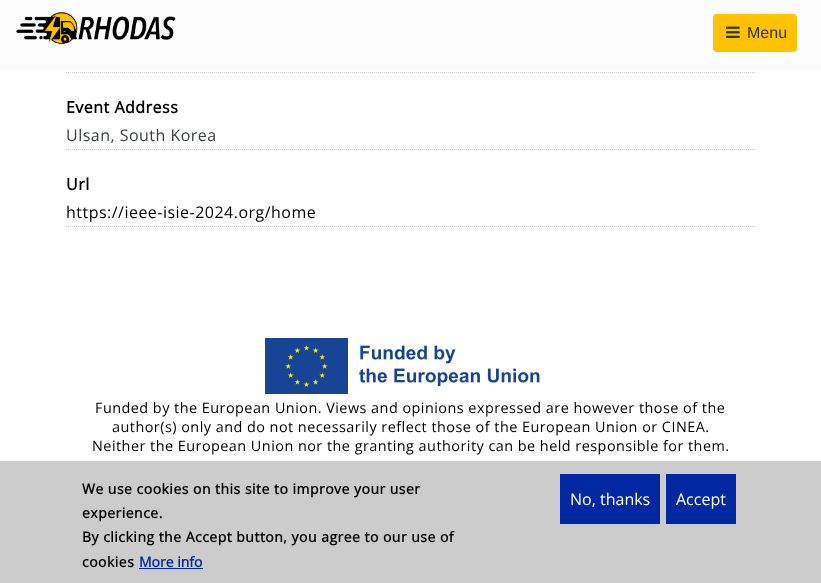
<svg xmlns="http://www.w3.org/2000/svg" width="821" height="583">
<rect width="100%" height="100%" fill="#fff"/>
<rect width="821" height="70" fill="#fcfcfc"/>
<image x="16" y="12" width="160" height="32" href="media/1.png"/>
<rect x="714" y="15" width="82" height="36" rx="3" fill="#ffc200" stroke="#ffc200" stroke-width="2"/>
<image x="726" y="26" width="14" height="12" href="media/2.png"/>
<text x="747" y="38" style="font-family:Liberation Sans;font-size:16px;fill:#333">Menu</text>
<path d="M66 72.5h690" fill="none" stroke="#ccc" stroke-dasharray="1 1"/>
<text x="66" y="113" style="font-family:Open Sans;font-size:16px;font-weight:bold;letter-spacing:0.48px;fill:#000">Event Address</text>
<path d="M66 149.5h690" fill="none" stroke="#ccc" stroke-dasharray="1 1"/>
<text x="66" y="141" style="font-family:Open Sans;font-size:16px;letter-spacing:0.48px;fill:#3c4043">Ulsan, South Korea</text>
<text x="66" y="190" style="font-family:Open Sans;font-size:16px;font-weight:bold;letter-spacing:0.48px;fill:#000">Url</text>
<path d="M66 226.5h690" fill="none" stroke="#ccc" stroke-dasharray="1 1"/>
<text x="66" y="218" style="font-family:Open Sans;font-size:16px;letter-spacing:0.48px;fill:#000">https://ieee-isie-2024.org/home</text>
<image x="265" y="338" width="275" height="56" href="media/3.png"/>
<text x="95" y="413" style="font-family:Open Sans;font-size:14.4px;letter-spacing:0.48px;fill:#000">Funded by the European Union. Views and opinions expressed are however those of the</text>
<text x="112" y="432" style="font-family:Open Sans;font-size:14.4px;letter-spacing:0.48px;fill:#000">author(s) only and do not necessarily reflect those of the European Union or CINEA.</text>
<text x="92" y="451" style="font-family:Open Sans;font-size:14.4px;letter-spacing:0.48px;fill:#000">Neither the European Union nor the granting authority can be held responsible for them.</text>
<rect y="461" width="821" height="122" fill="#ccc"/>
<text x="82" y="494" style="font-family:Open Sans;font-size:14px;font-weight:bold;letter-spacing:0.48px;fill:#000">We use cookies on this site to improve your user</text>
<text x="82" y="518" style="font-family:Open Sans;font-size:14px;font-weight:bold;letter-spacing:0.48px;fill:#000">experience.</text>
<text x="82" y="542" style="font-family:Open Sans;font-size:14px;font-weight:bold;letter-spacing:0.48px;fill:#000">By clicking the Accept button, you agree to our use of</text>
<text x="82" y="567" style="font-family:Open Sans;font-size:14px;font-weight:bold;letter-spacing:0.48px;fill:#000">cookies</text>
<text x="139" y="567" style="font-family:Open Sans;font-size:14px;font-weight:bold;fill:#0028a3">More info</text>
<rect x="139" y="568" width="64" height="1" fill="#0028a3"/>
<rect x="560" y="474" width="100" height="50" fill="#0028a3"/>
<text x="570" y="505" style="font-family:Open Sans;font-size:16px;fill:#fff">No, thanks</text>
<rect x="666" y="474" width="70" height="50" fill="#0028a3"/>
<text x="676" y="505" style="font-family:Open Sans;font-size:16px;fill:#fff">Accept</text>
</svg>
